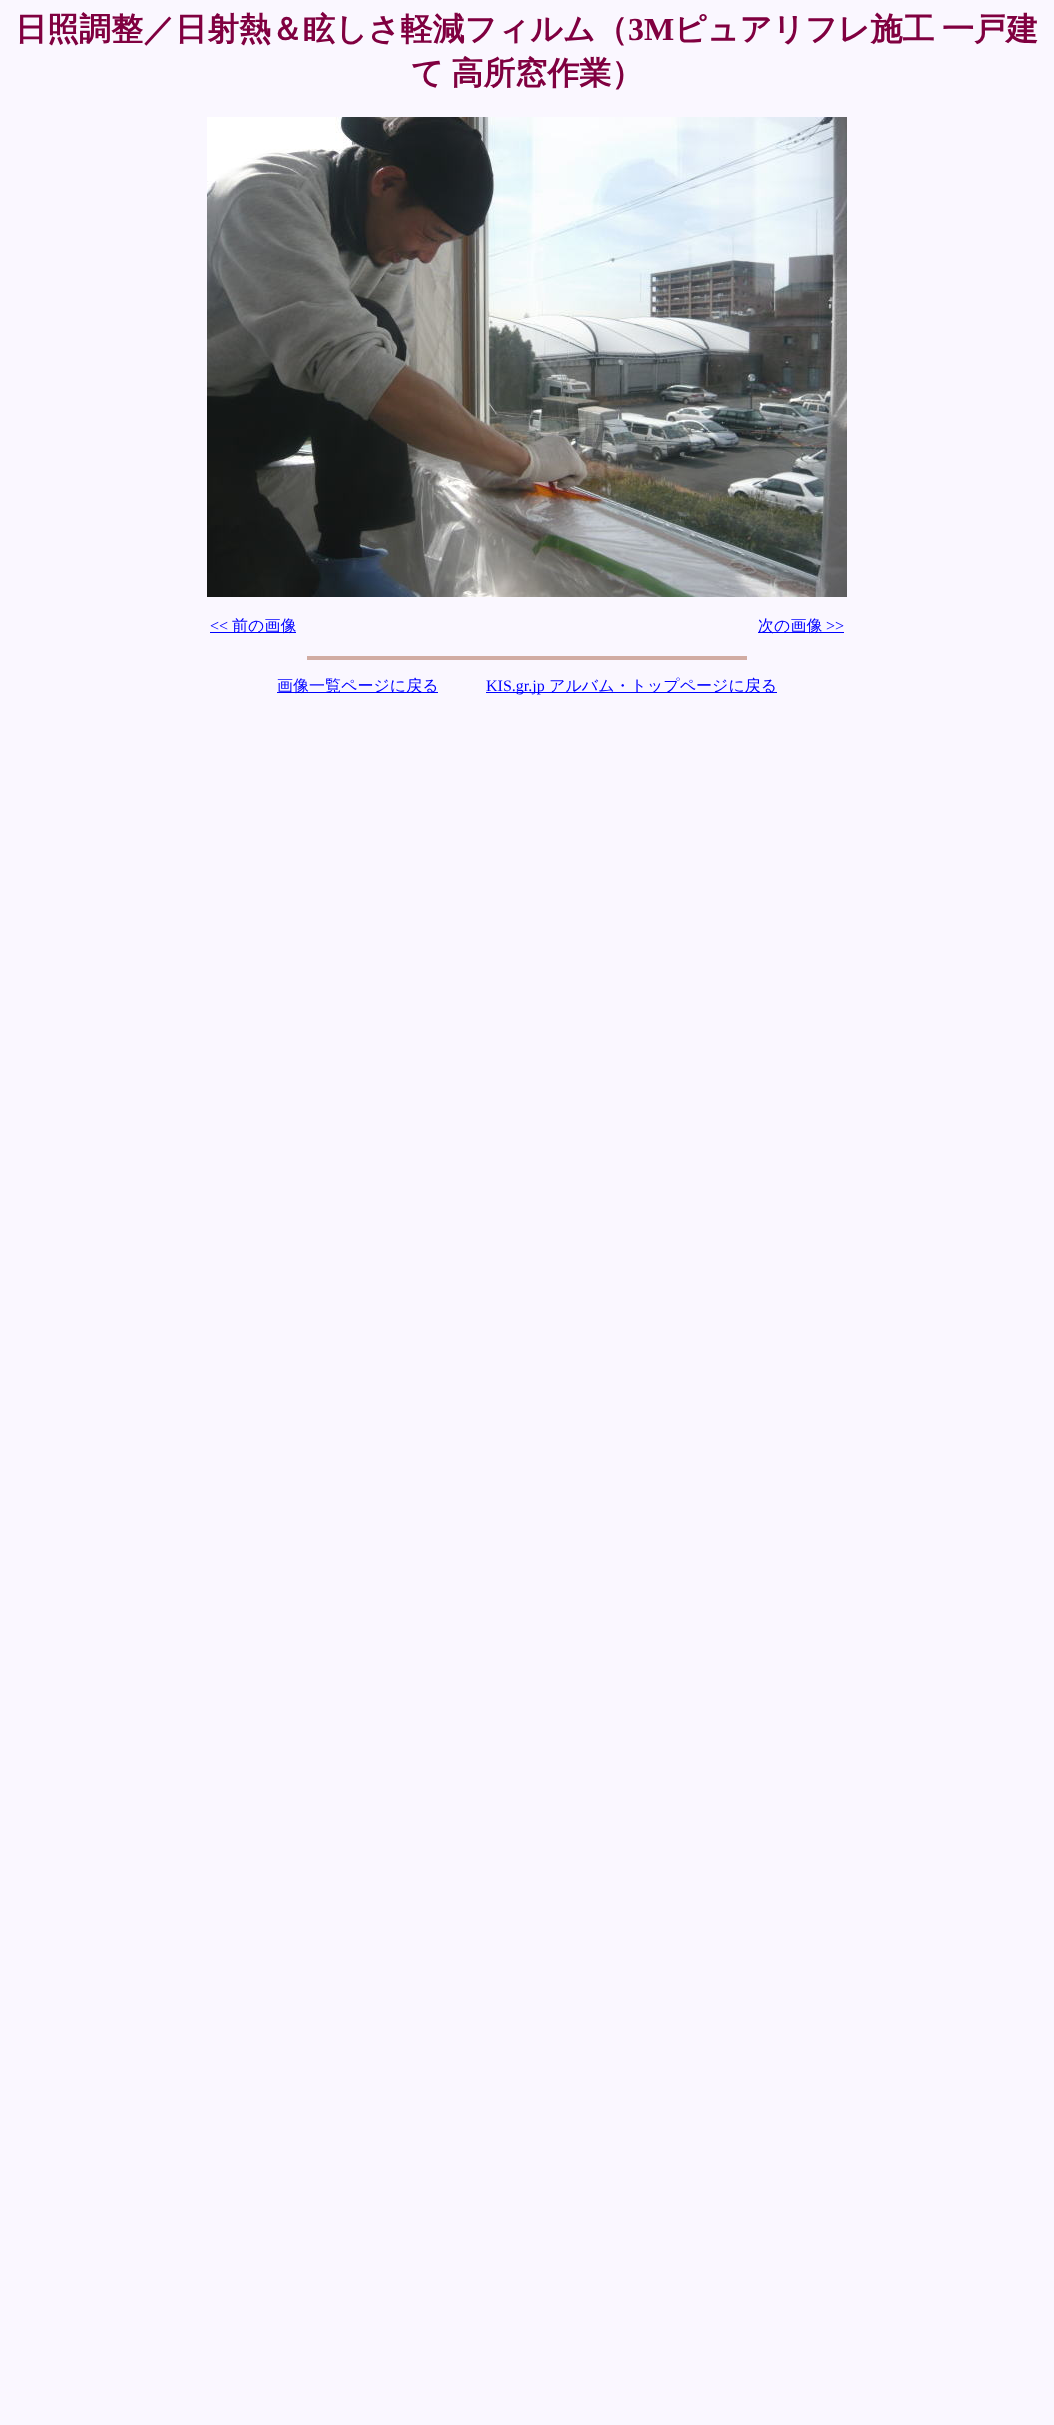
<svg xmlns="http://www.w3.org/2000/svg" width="1054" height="2425">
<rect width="100%" height="100%" fill="#faf7ff"/>
<text x="15" y="40" style="font-family:WenQuanYi Zen Hei;font-size:32px;font-weight:bold;fill:#800040">日照調整／日射熱＆眩しさ軽減フィルム（</text>
<text x="628" y="40" style="font-family:Liberation Serif;font-size:32px;font-weight:bold;fill:#800040">3M</text>
<text x="674" y="40" word-spacing="-2" style="font-family:WenQuanYi Zen Hei;font-size:32px;font-weight:bold;fill:#800040">ピュアリフレ施工 一戸建</text>
<text x="411" y="84" word-spacing="-2" style="font-family:WenQuanYi Zen Hei;font-size:32px;font-weight:bold;fill:#800040">て 高所窓作業）</text>
<image x="207" y="117" width="640" height="480" href="media/1.png"/>
<text x="210" y="631" style="font-family:Liberation Serif;font-size:16px;fill:#00f">&lt;&lt;</text>
<rect x="210" y="632" width="86" height="1" fill="#00f"/>
<text x="232" y="631" style="font-family:WenQuanYi Zen Hei;font-size:16px;font-weight:500;fill:#00f">前の画像</text>
<rect x="758" y="632" width="86" height="1" fill="#00f"/>
<text x="758" y="631" style="font-family:WenQuanYi Zen Hei;font-size:16px;font-weight:500;fill:#00f">次の画像</text>
<text x="826" y="631" style="font-family:Liberation Serif;font-size:16px;fill:#00f">&gt;&gt;</text>
<rect x="307" y="656" width="440" height="4" fill="#d1aca3"/>
<rect x="277" y="692" width="161" height="1" fill="#00f"/>
<text x="277" y="691" style="font-family:WenQuanYi Zen Hei;font-size:16px;font-weight:500;fill:#00f">画像一覧ページに戻る</text>
<rect x="486" y="692" width="291" height="1" fill="#00f"/>
<text x="486" y="691" style="font-family:Liberation Serif;font-size:16px;fill:#00f">KIS.gr.jp</text>
<text x="549" y="691" style="font-family:WenQuanYi Zen Hei;font-size:16px;font-weight:500;fill:#00f">アルバム・トップページに戻る</text>
</svg>
